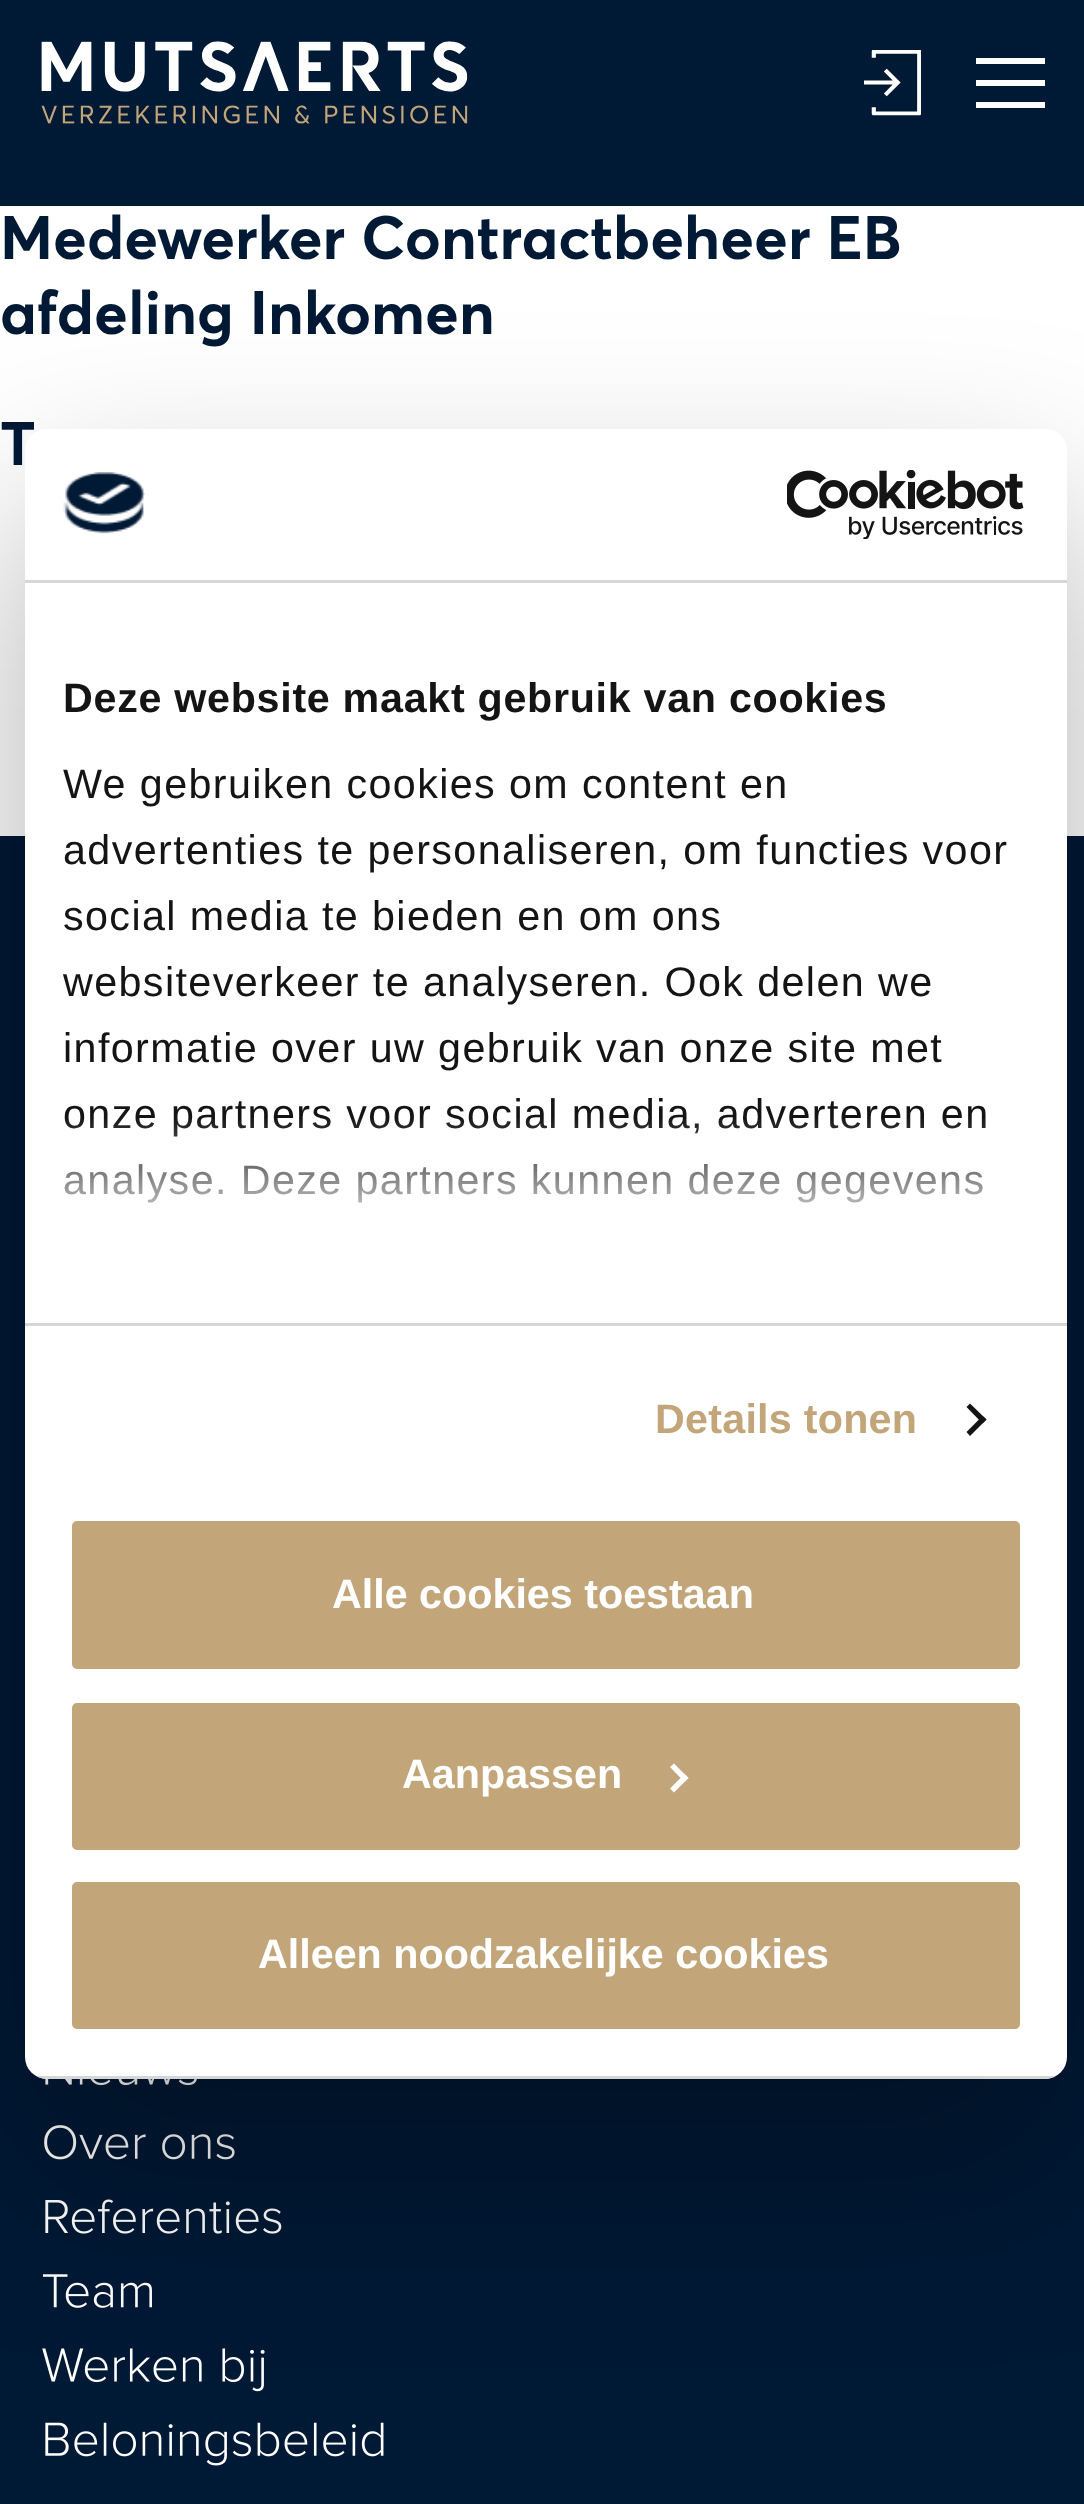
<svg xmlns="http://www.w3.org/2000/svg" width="1084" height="2504">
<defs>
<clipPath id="clip1"><path d="M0 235h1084v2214h-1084zm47 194h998c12 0 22 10 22 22v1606c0 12-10 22-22 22h-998c-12 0-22-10-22-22v-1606c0-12 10-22 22-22z" clip-rule="evenodd"/></clipPath>
<linearGradient id="g1" gradientUnits="userSpaceOnUse" x1="527" y1="1322" x2="527" y2="1116"><stop offset="0" stop-color="#fff"/><stop offset="0.5" stop-color="#fff" stop-opacity="0.8"/><stop offset="1" stop-color="#fff" stop-opacity="0"/></linearGradient>
<clipPath id="clip2"><rect x="25" y="429" width="1042" height="1650" rx="22"/></clipPath>
</defs>
<rect width="100%" height="100%" fill="#fff"/>
<rect width="1084" height="206" fill="#001935"/>
<image x="41" y="41" width="427" height="83" href="media/1.png"/>
<image x="864" y="50" width="57" height="66" href="media/2.png"/>
<rect x="976" y="80" width="69" height="6" fill="#fff"/>
<rect x="976" y="58" width="69" height="6" fill="#fff"/>
<rect x="976" y="102" width="69" height="6" fill="#fff"/>
<text x="0" y="259" style="font-family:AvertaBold;font-size:60.5px;font-weight:bold;fill:#001935">Medewerker Contractbeheer EB</text>
<text x="0" y="334" style="font-family:AvertaBold;font-size:60.5px;font-weight:bold;fill:#001935">afdeling Inkomen</text>
<text x="0" y="465" style="font-family:AvertaBold;font-size:60.5px;font-weight:bold;fill:#001935">T</text>
<rect y="836" width="1084" height="1668" fill="#001935"/>
<image x="45" y="2078" width="152" height="8" href="media/3.png"/>
<image x="44" y="2125" width="191" height="35" href="media/4.png"/>
<image x="45" y="2199" width="237" height="35" href="media/5.png"/>
<image x="43" y="2274" width="109" height="34" href="media/6.png"/>
<image x="42" y="2348" width="223" height="44" href="media/7.png"/>
<image x="45" y="2422" width="339" height="44" href="media/8.png"/>
<g clip-path="url(#clip1)">
<rect x="25" y="517" width="1042" height="1650" rx="22" fill="#0000004d" filter="blur(93.5px)"/>
</g>
<rect x="25" y="429" width="1042" height="1650" rx="22" fill="#fff"/>
<rect x="25" y="580" width="1042" height="3" fill="#d6d6d6"/>
<image x="63" y="472" width="82" height="62" href="media/9.png"/>
<image x="787" y="470" width="237" height="69" href="media/10.png"/>
<rect x="25" y="1323" width="1042" height="3" fill="#d6d6d6"/>
<text x="63" y="712" style="font-family:Liberation Sans;font-size:41.25px;font-weight:bold;letter-spacing:0.7px;fill:#141414">Deze website maakt gebruik van cookies</text>
<text x="63" y="798" style="font-family:Liberation Sans;font-size:41.25px;letter-spacing:1.4px;fill:#141414">We gebruiken cookies om content en</text>
<text x="63" y="864" style="font-family:Liberation Sans;font-size:41.25px;letter-spacing:1.4px;fill:#141414">advertenties te personaliseren, om functies voor</text>
<text x="63" y="930" style="font-family:Liberation Sans;font-size:41.25px;letter-spacing:1.4px;fill:#141414">social media te bieden en om ons</text>
<text x="63" y="996" style="font-family:Liberation Sans;font-size:41.25px;letter-spacing:1.4px;fill:#141414">websiteverkeer te analyseren. Ook delen we</text>
<text x="63" y="1062" style="font-family:Liberation Sans;font-size:41.25px;letter-spacing:1.4px;fill:#141414">informatie over uw gebruik van onze site met</text>
<text x="63" y="1128" style="font-family:Liberation Sans;font-size:41.25px;letter-spacing:1.4px;fill:#141414">onze partners voor social media, adverteren en</text>
<text x="63" y="1194" style="font-family:Liberation Sans;font-size:41.25px;letter-spacing:1.4px;fill:#141414">analyse. Deze partners kunnen deze gegevens</text>
<rect x="65" y="1119" width="920" height="84" fill="url(#g1)"/>
<text x="655" y="1433" style="font-family:Liberation Sans;font-size:41.25px;font-weight:bold;letter-spacing:0.25px;fill:#c2a67a">Details tonen</text>
<path d="M970 1403.5l16.5 16l-4 4l-16-16.5z" fill="#141414"/>
<path d="M982.5 1416l4 3.5l-16.5 16.5l-3.5-4z" fill="#141414"/>
<g clip-path="url(#clip2)">
<rect x="36" y="2076" width="1020" height="3" fill="#d6d6d6"/>
</g>
<rect x="69" y="1518" width="954" height="154" rx="8" fill="#c2a67a" stroke="#fff" stroke-width="6"/>
<text x="332" y="1608" style="font-family:Liberation Sans;font-size:41.25px;font-weight:bold;fill:#fff">Alle cookies toestaan</text>
<rect x="69" y="1700" width="954" height="153" rx="8" fill="#c2a67a" stroke="#fff" stroke-width="6"/>
<text x="402" y="1788" style="font-family:Liberation Sans;font-size:41.25px;font-weight:bold;fill:#fff">Aanpassen</text>
<path d="M674 1763.5l14.5 14.5l-4 4l-14.5-15z" fill="#fff"/>
<path d="M684.5 1774l4 4l-14.5 14.5l-4-4z" fill="#fff"/>
<rect x="69" y="1879" width="954" height="153" rx="8" fill="#c2a67a" stroke="#fff" stroke-width="6"/>
<text x="258" y="1968" style="font-family:Liberation Sans;font-size:41.25px;font-weight:bold;fill:#fff">Alleen noodzakelijke cookies</text>
</svg>
